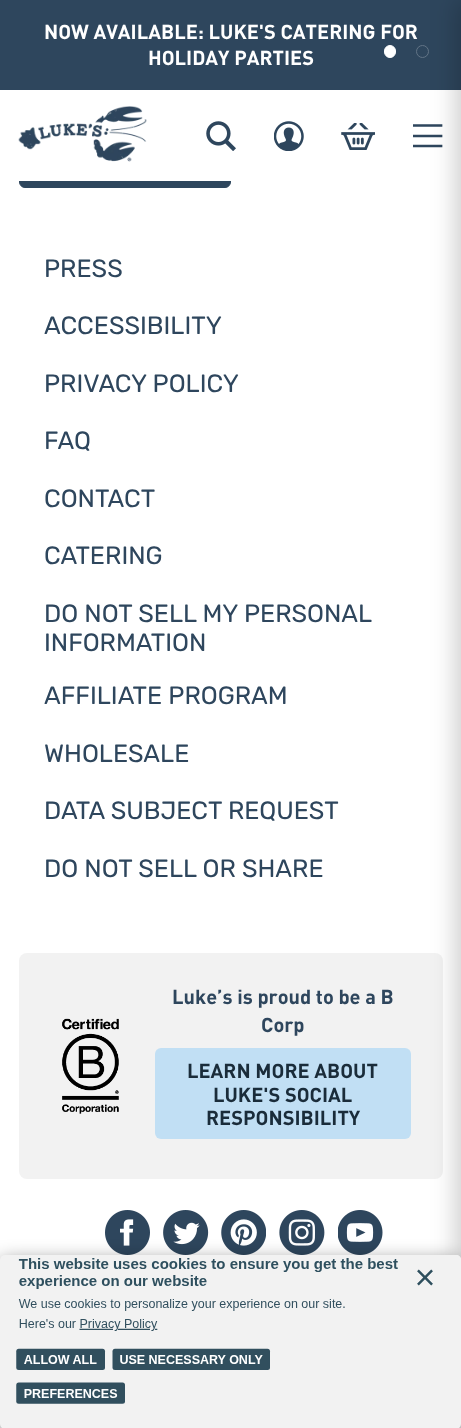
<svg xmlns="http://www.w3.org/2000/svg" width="461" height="1428">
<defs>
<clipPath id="clip1"><rect x="413" y="124" width="30" height="24"/></clipPath>
</defs>
<rect width="100%" height="100%" fill="#fff"/>
<rect width="461" height="90" fill="#2e465d"/>
<text x="44" y="39" style="font-family:DIN;font-size:20px;font-weight:bold;fill:#fff">NOW AVAILABLE: LUKE'S CATERING FOR</text>
<text x="148" y="65" style="font-family:DIN;font-size:20px;font-weight:bold;fill:#fff">HOLIDAY PARTIES</text>
<rect x="384.5" y="45.5" width="11" height="12" rx="5.5" fill="#fff" stroke="#fff"/>
<circle cx="422.5" cy="51.5" r="6" fill="none" stroke="#627486"/>
<rect x="19.5" y="131.5" width="211" height="56" rx="5.5" fill="#2e465d" stroke="#2e465d"/>
<rect x="19" y="131" width="212" height="50" fill="#fff"/>
<image x="18" y="106" width="129" height="56" href="media/1.png"/>
<image x="206" y="121" width="30" height="30" href="media/2.png"/>
<image x="274" y="121" width="30" height="30" href="media/3.png"/>
<image x="341" y="123" width="34" height="27" href="media/4.png"/>
<g clip-path="url(#clip1)">
<path d="M414 125.5h27m-27 10.5h27m-27 10h27" fill="none" stroke="#2e465d" stroke-width="2.7" stroke-linecap="square"/>
</g>
<rect x="19" y="953" width="424" height="226" rx="8" fill="#f2f2f2"/>
<rect x="456" width="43" height="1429" fill="#00000033" filter="blur(12.5px)"/>
<text x="44" y="277" style="font-family:Rubik;font-size:25px;font-weight:300;fill:#2e465d">PRESS</text>
<text x="44" y="334" style="font-family:Rubik;font-size:25px;font-weight:300;fill:#2e465d">ACCESSIBILITY</text>
<text x="44" y="392" style="font-family:Rubik;font-size:25px;font-weight:300;fill:#2e465d">PRIVACY POLICY</text>
<text x="44" y="449" style="font-family:Rubik;font-size:25px;font-weight:300;fill:#2e465d">FAQ</text>
<text x="44" y="507" style="font-family:Rubik;font-size:25px;font-weight:300;fill:#2e465d">CONTACT</text>
<text x="44" y="564" style="font-family:Rubik;font-size:25px;font-weight:300;fill:#2e465d">CATERING</text>
<text x="44" y="622" style="font-family:Rubik;font-size:25px;font-weight:300;fill:#2e465d">DO NOT SELL MY PERSONAL</text>
<text x="44" y="651" style="font-family:Rubik;font-size:25px;font-weight:300;fill:#2e465d">INFORMATION</text>
<text x="44" y="704" style="font-family:Rubik;font-size:25px;font-weight:300;fill:#2e465d">AFFILIATE PROGRAM</text>
<text x="44" y="762" style="font-family:Rubik;font-size:25px;font-weight:300;fill:#2e465d">WHOLESALE</text>
<text x="44" y="819" style="font-family:Rubik;font-size:25px;font-weight:300;fill:#2e465d">DATA SUBJECT REQUEST</text>
<text x="44" y="877" style="font-family:Rubik;font-size:25px;font-weight:300;fill:#2e465d">DO NOT SELL OR SHARE</text>
<image x="62" y="1018" width="57" height="96" href="media/5.png"/>
<text x="172" y="1004" style="font-family:DIN;font-size:20px;font-weight:bold;fill:#2e465d">Luke’s is proud to be a B</text>
<text x="261" y="1032" style="font-family:DIN;font-size:20px;font-weight:bold;fill:#2e465d">Corp</text>
<rect x="155" y="1048" width="256" height="91" rx="6" fill="#c1dff4"/>
<text x="187" y="1078" style="font-family:DIN;font-size:20px;font-weight:bold;fill:#1a2c3a">LEARN MORE ABOUT</text>
<text x="213" y="1102" style="font-family:DIN;font-size:20px;font-weight:bold;fill:#1a2c3a">LUKE'S SOCIAL</text>
<text x="206" y="1125" style="font-family:DIN;font-size:20px;font-weight:bold;fill:#1a2c3a">RESPONSIBILITY</text>
<image x="105" y="1210" width="45" height="45" href="media/6.png"/>
<image x="163" y="1210" width="46" height="45" href="media/7.png"/>
<image x="221" y="1210" width="45" height="45" href="media/8.png"/>
<image x="279" y="1210" width="46" height="45" href="media/9.png"/>
<image x="338" y="1210" width="45" height="45" href="media/10.png"/>
<rect y="1261" width="461" height="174" rx="5" fill="#00000080" filter="blur(9.5px)"/>
<rect y="1255" width="461" height="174" rx="5" fill="#f2f2f2"/>
<image x="16" y="1255" width="445" height="149" href="media/11.png"/>
</svg>
